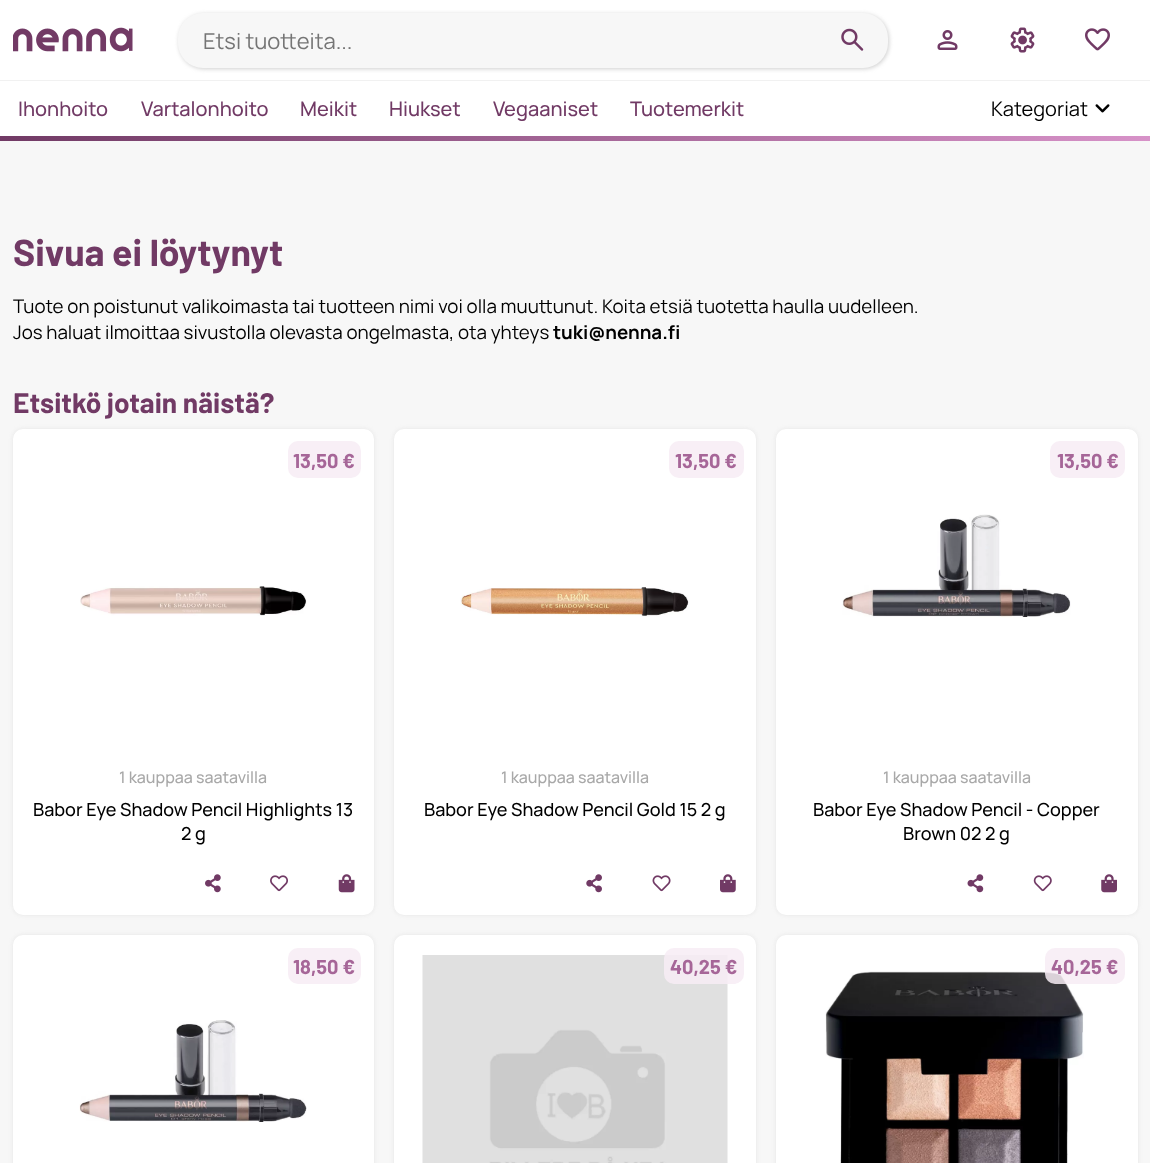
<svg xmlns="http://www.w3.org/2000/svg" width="1150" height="1163">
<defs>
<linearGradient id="g1" gradientUnits="userSpaceOnUse" x1="2.6" y1="99" x2="1147" y2="179"><stop offset="0" stop-color="#ff8ee0"/><stop offset="0" stop-color="#713a65"/><stop offset="1" stop-color="#d792c8"/></linearGradient>
</defs>
<rect width="100%" height="100%" fill="#fff"/>
<image x="13" y="27" width="120" height="25" href="media/1.png"/>
<rect x="179" y="14" width="710" height="55" rx="25" fill="#d0d0d0" filter="blur(2px)"/>
<rect x="178" y="13" width="710" height="55" rx="25" fill="#f7f7f7"/>
<text x="203" y="49" style="font-family:Manrope;font-size:22px;fill:#757575">Etsi tuotteita...</text>
<image x="841" y="28" width="23" height="23" href="media/2.png"/>
<image x="937" y="30" width="21" height="20" href="media/3.png"/>
<image x="1010" y="27" width="25" height="26" href="media/4.png"/>
<image x="1085" y="28" width="25" height="23" href="media/5.png"/>
<rect y="80" width="1150" height="1" fill="#f1f1f1"/>
<text x="18" y="116" style="font-family:Manrope;font-size:20px;font-weight:500;fill:#713a65">Ihonhoito</text>
<text x="141" y="116" style="font-family:Manrope;font-size:20px;font-weight:500;fill:#713a65">Vartalonhoito</text>
<text x="300" y="116" style="font-family:Manrope;font-size:20px;font-weight:500;fill:#713a65">Meikit</text>
<text x="389" y="116" style="font-family:Manrope;font-size:20px;font-weight:500;fill:#713a65">Hiukset</text>
<text x="493" y="116" style="font-family:Manrope;font-size:20px;font-weight:500;fill:#713a65">Vegaaniset</text>
<text x="630" y="116" style="font-family:Manrope;font-size:20px;font-weight:500;fill:#713a65">Tuotemerkit</text>
<text x="991" y="116" style="font-family:Manrope;font-size:20px;fill:#000">Kategoriat</text>
<image x="1095" y="104" width="15" height="9" href="media/6.png"/>
<rect y="136" width="1150" height="5" fill="url(#g1)"/>
<rect y="141" width="1150" height="1022" fill="#f7f7f7"/>
<text x="13" y="266" style="font-family:Barlow;font-size:37.5px;font-weight:bold;fill:#713a65">Sivua ei löytynyt</text>
<text x="13" y="313" style="font-family:Manrope;font-size:18.75px;fill:#000">Tuote on poistunut valikoimasta tai tuotteen nimi voi olla muuttunut. Koita etsiä tuotetta haulla uudelleen.</text>
<text x="13" y="339" style="font-family:Manrope;font-size:18.75px;fill:#000">Jos haluat ilmoittaa sivustolla olevasta ongelmasta, ota yhteys</text>
<text x="553" y="339" style="font-family:Manrope;font-size:18.75px;font-weight:bold;fill:#000">tuki@nenna.fi</text>
<text x="13" y="413" style="font-family:Barlow;font-size:28.1px;font-weight:bold;fill:#713a65">Etsitkö jotain näistä?</text>
<rect x="13" y="429" width="361" height="486" rx="10" fill="#d5d5d580" filter="blur(2px)"/>
<rect x="13" y="429" width="361" height="486" rx="10" fill="#fff"/>
<rect x="288" y="441" width="73" height="37" rx="10" fill="#f8eff6"/>
<text x="293" y="468" style="font-family:Barlow;font-size:20px;font-weight:bold;fill:#a66698">13,50 €</text>
<image x="80" y="586" width="227" height="30" href="media/7.png"/>
<text x="119" y="783" style="font-family:Manrope;font-size:16px;font-weight:500;fill:#a8a8a8">1 kauppaa saatavilla</text>
<text x="33" y="816" style="font-family:Manrope;font-size:18px;font-weight:500;fill:#000">Babor Eye Shadow Pencil Highlights 13</text>
<text x="181" y="840" style="font-family:Manrope;font-size:18px;font-weight:500;fill:#000">2 g</text>
<image x="205" y="874" width="16" height="19" href="media/8.png"/>
<image x="270" y="875" width="18" height="17" href="media/9.png"/>
<image x="338" y="874" width="17" height="19" href="media/10.png"/>
<rect x="394" y="429" width="362" height="486" rx="10" fill="#d5d5d580" filter="blur(2px)"/>
<rect x="394" y="429" width="362" height="486" rx="10" fill="#fff"/>
<rect x="669" y="441" width="75" height="37" rx="10" fill="#f8eff6"/>
<text x="675" y="468" style="font-family:Barlow;font-size:20px;font-weight:bold;fill:#a66698">13,50 €</text>
<image x="460" y="587" width="229" height="30" href="media/11.png"/>
<text x="501" y="783" style="font-family:Manrope;font-size:16px;font-weight:500;fill:#a8a8a8">1 kauppaa saatavilla</text>
<text x="424" y="816" style="font-family:Manrope;font-size:18px;font-weight:500;fill:#000">Babor Eye Shadow Pencil Gold 15 2 g</text>
<image x="586" y="874" width="16" height="19" href="media/12.png"/>
<image x="652" y="875" width="19" height="17" href="media/13.png"/>
<image x="720" y="874" width="16" height="19" href="media/14.png"/>
<rect x="776" y="429" width="362" height="486" rx="10" fill="#d5d5d580" filter="blur(2px)"/>
<rect x="776" y="429" width="362" height="486" rx="10" fill="#fff"/>
<rect x="1050" y="441" width="75" height="37" rx="10" fill="#f8eff6"/>
<text x="1057" y="468" style="font-family:Barlow;font-size:20px;font-weight:bold;fill:#a66698">13,50 €</text>
<image x="842" y="514" width="229" height="104" href="media/15.png"/>
<text x="883" y="783" style="font-family:Manrope;font-size:16px;font-weight:500;fill:#a8a8a8">1 kauppaa saatavilla</text>
<text x="813" y="816" style="font-family:Manrope;font-size:18px;font-weight:500;fill:#000">Babor Eye Shadow Pencil - Copper</text>
<text x="903" y="840" style="font-family:Manrope;font-size:18px;font-weight:500;fill:#000">Brown 02 2 g</text>
<image x="967" y="874" width="17" height="19" href="media/16.png"/>
<image x="1033" y="875" width="19" height="17" href="media/17.png"/>
<image x="1101" y="874" width="16" height="19" href="media/18.png"/>
<rect x="13" y="935" width="361" height="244" rx="10" fill="#d5d5d580" filter="blur(2px)"/>
<rect x="13" y="935" width="361" height="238" rx="10" fill="#fff"/>
<rect x="288" y="948" width="73" height="36" rx="10" fill="#f8eff6"/>
<text x="293" y="974" style="font-family:Barlow;font-size:20px;font-weight:bold;fill:#a66698">18,50 €</text>
<image x="79" y="1020" width="228" height="102" href="media/19.png"/>
<rect x="394" y="935" width="362" height="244" rx="10" fill="#d5d5d580" filter="blur(2px)"/>
<rect x="394" y="935" width="362" height="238" rx="10" fill="#fff"/>
<image x="422" y="955" width="306" height="208" href="media/20.png"/>
<rect x="664" y="948" width="80" height="36" rx="10" fill="#f7ecf4d9"/>
<text x="670" y="974" style="font-family:Barlow;font-size:20px;font-weight:bold;fill:#a66698">40,25 €</text>
<rect x="776" y="935" width="362" height="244" rx="10" fill="#d5d5d580" filter="blur(2px)"/>
<rect x="776" y="935" width="362" height="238" rx="10" fill="#fff"/>
<image x="825" y="971" width="259" height="192" href="media/21.png"/>
<rect x="1045" y="948" width="80" height="36" rx="10" fill="#f7ecf4d9"/>
<text x="1051" y="974" style="font-family:Barlow;font-size:20px;font-weight:bold;fill:#a66698">40,25 €</text>
</svg>
